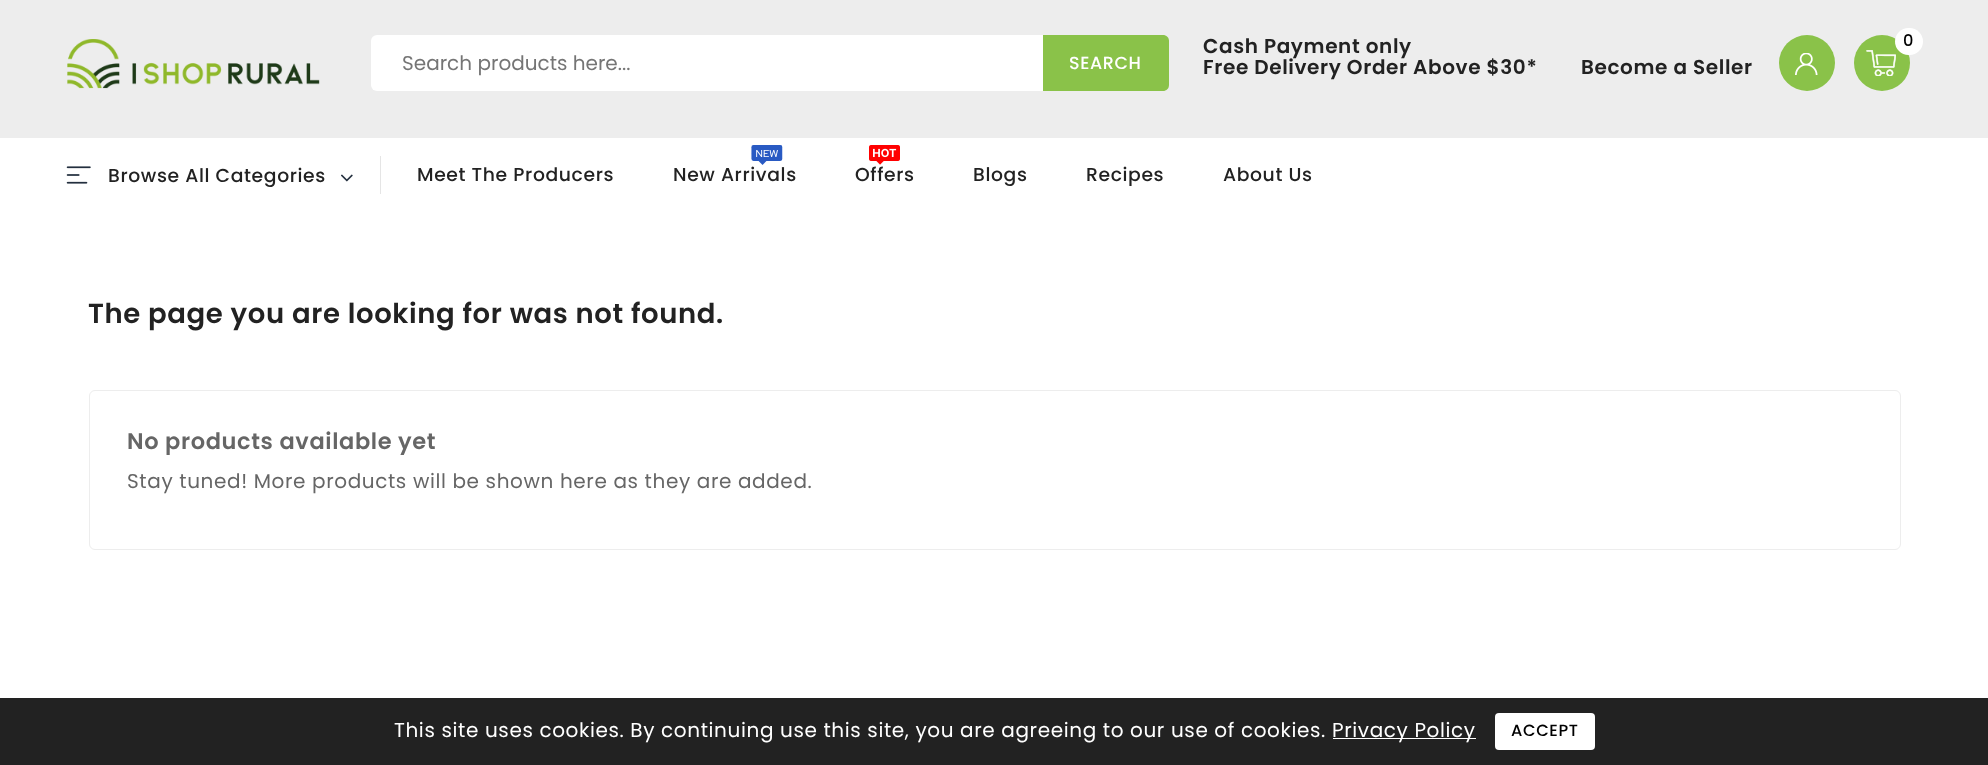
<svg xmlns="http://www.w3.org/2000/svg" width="1988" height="765">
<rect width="100%" height="100%" fill="#fff"/>
<rect width="1988" height="138" fill="#ededed"/>
<image x="67" y="39" width="253" height="50" href="media/1.png"/>
<rect x="371" y="35" width="798" height="56" rx="6" fill="#fff"/>
<text x="402" y="70" style="font-family:Poppins;font-size:20px;fill:#757575">Search products here...</text>
<path d="M1043 35h120c3.5 0 6 2.5 6 6v44c0 3.5-2.5 6-6 6h-120z" fill="#8ac249"/>
<text x="1069" y="69" style="font-family:Poppins;font-size:17.5px;font-weight:500;letter-spacing:0.62px;fill:#fff">SEARCH</text>
<text x="1203" y="53" style="font-family:Poppins;font-size:20px;font-weight:600;letter-spacing:0.62px;fill:#222">Cash Payment only</text>
<text x="1203" y="74" style="font-family:Poppins;font-size:20px;font-weight:600;letter-spacing:0.62px;fill:#222">Free Delivery Order Above $30*</text>
<text x="1581" y="74" style="font-family:Poppins;font-size:20px;font-weight:600;letter-spacing:0.62px;fill:#222">Become a Seller</text>
<circle cx="1807" cy="63" r="28" fill="#8ac249"/>
<image x="1795" y="53" width="23" height="22" href="media/2.png"/>
<circle cx="1882" cy="63" r="28" fill="#8ac249"/>
<image x="1866" y="50" width="30" height="26" href="media/3.png"/>
<rect x="1895" y="28" width="28" height="27" rx="13.5" fill="#fff"/>
<text x="1903" y="46" style="font-family:Poppins;font-size:16.25px;font-weight:500;fill:#000">0</text>
<image x="66" y="166" width="25" height="18" href="media/4.png"/>
<text x="108" y="182" style="font-family:Poppins;font-size:18.75px;font-weight:500;letter-spacing:0.62px;fill:#222">Browse All Categories</text>
<image x="341" y="174" width="12" height="8" href="media/5.png"/>
<rect x="380" y="156" width="1" height="38" fill="#e5e5e5"/>
<text x="417" y="181" style="font-family:Poppins;font-size:18.75px;font-weight:500;letter-spacing:0.62px;fill:#222">Meet The Producers</text>
<image x="751" y="145" width="32" height="20" href="media/6.png"/>
<text x="673" y="181" style="font-family:Poppins;font-size:18.75px;font-weight:500;letter-spacing:0.62px;fill:#222">New Arrivals</text>
<image x="869" y="145" width="31" height="20" href="media/7.png"/>
<text x="855" y="181" style="font-family:Poppins;font-size:18.75px;font-weight:500;letter-spacing:0.62px;fill:#222">Offers</text>
<text x="973" y="181" style="font-family:Poppins;font-size:18.75px;font-weight:500;letter-spacing:0.62px;fill:#222">Blogs</text>
<text x="1086" y="181" style="font-family:Poppins;font-size:18.75px;font-weight:500;letter-spacing:0.62px;fill:#222">Recipes</text>
<text x="1223" y="181" style="font-family:Poppins;font-size:18.75px;font-weight:500;letter-spacing:0.62px;fill:#222">About Us</text>
<text x="88" y="323" style="font-family:Poppins;font-size:27.5px;font-weight:600;letter-spacing:0.62px;fill:#222">The page you are looking for was not found.</text>
<rect x="89.5" y="390.5" width="1811" height="159" rx="5.5" fill="none" stroke="#ededed"/>
<text x="127" y="449" style="font-family:Poppins;font-size:22.5px;font-weight:600;letter-spacing:0.62px;fill:#666">No products available yet</text>
<text x="127" y="488" style="font-family:Poppins;font-size:20px;letter-spacing:0.62px;fill:#666">Stay tuned! More products will be shown here as they are added.</text>
<rect y="698" width="1988" height="67" fill="#222"/>
<text x="394" y="737" style="font-family:Poppins;font-size:20px;letter-spacing:0.62px;fill:#fff">This site uses cookies. By continuing use this site, you are agreeing to our use of cookies.</text>
<rect x="1333" y="738" width="143" height="1" fill="#fff"/>
<text x="1332" y="737" style="font-family:Poppins;font-size:20px;letter-spacing:0.62px;fill:#fff">Privacy Policy</text>
<rect x="1495" y="713" width="100" height="37" rx="4" fill="#fff"/>
<text x="1511" y="736" style="font-family:Poppins;font-size:16.25px;font-weight:500;letter-spacing:0.62px;fill:#000">ACCEPT</text>
</svg>
